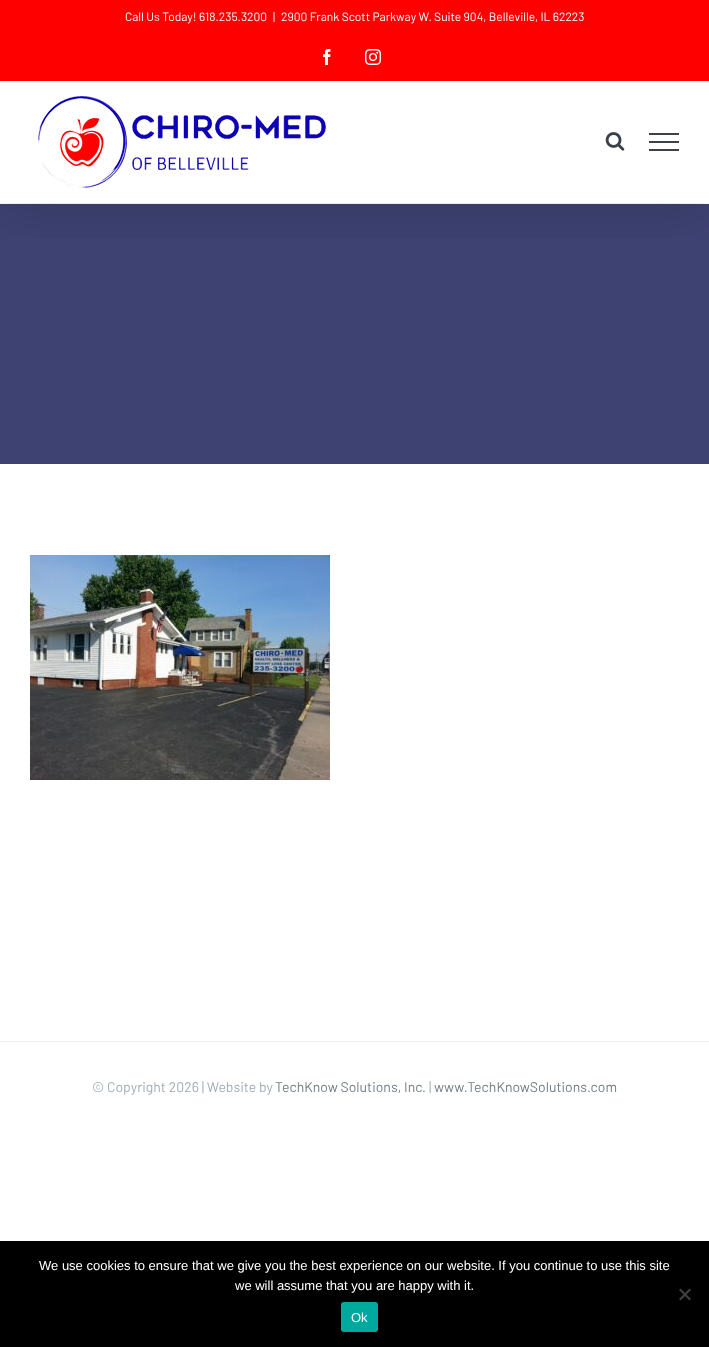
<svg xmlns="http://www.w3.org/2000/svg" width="709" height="1347">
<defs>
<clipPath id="clip1"><rect x="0" y="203" width="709" height="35"/></clipPath>
</defs>
<rect width="100%" height="100%" fill="#fff"/>
<rect y="204" width="709" height="260" fill="#3e4272"/>
<g clip-path="url(#clip1)">
<rect x="2" y="12" width="705" height="199" fill="#00000024" filter="blur(25px)"/>
</g>
<rect width="709" height="81" fill="#f00"/>
<text x="125" y="21" style="font-family:Barlow;font-size:12px;fill:#fff">Call Us Today! 618.235.3200</text>
<text x="273" y="21" style="font-family:Barlow;font-size:12px;fill:#fff">|</text>
<text x="281" y="21" style="font-family:Barlow;font-size:12px;fill:#fff">2900 Frank Scott Parkway W. Suite 904, Belleville, IL 62223</text>
<image x="323" y="49" width="8" height="16" href="media/1.png"/>
<image x="365" y="49" width="16" height="16" href="media/2.png"/>
<image x="37" y="96" width="289" height="92" href="media/3.png"/>
<image x="605" y="132" width="20" height="19" href="media/4.png"/>
<rect x="649" y="133" width="30" height="2" fill="#3a4149"/>
<rect x="649" y="141" width="30" height="2" fill="#3a4149"/>
<rect x="649" y="149" width="30" height="2" fill="#3a4149"/>
<image x="30" y="555" width="300" height="225" href="media/5.png"/>
<rect y="1041" width="709" height="1" fill="#eee"/>
<text x="92" y="1092" style="font-family:Barlow;font-size:14px;fill:#a3acb6">© Copyright 2026 | Website by</text>
<text x="275" y="1092" style="font-family:Barlow;font-size:14px;fill:#757d85">TechKnow Solutions, Inc.</text>
<text x="429" y="1092" style="font-family:Barlow;font-size:14px;fill:#a3acb6">|</text>
<text x="434" y="1092" style="font-family:Barlow;font-size:14px;fill:#757d85">www.TechKnowSolutions.com</text>
<rect y="1241" width="709" height="106" fill="#000"/>
<text x="39" y="1270" style="font-family:Liberation Sans;font-size:13px;fill:#fff">We use cookies to ensure that we give you the best experience on our website. If you continue to use this site</text>
<text x="235" y="1290" style="font-family:Liberation Sans;font-size:13px;fill:#fff">we will assume that you are happy with it.</text>
<path d="M689.5 1288.5l1.5 1.5l-10.5 10.5l-1.5-1.5z" fill="#404040"/>
<path d="M679 1290l1.5-1.5l10.5 10.5l-1.5 1.5z" fill="#404040"/>
<rect x="341" y="1302" width="37" height="30" rx="3" fill="#00a99d"/>
<text x="351" y="1322" style="font-family:Liberation Sans;font-size:13px;fill:#fff">Ok</text>
</svg>
